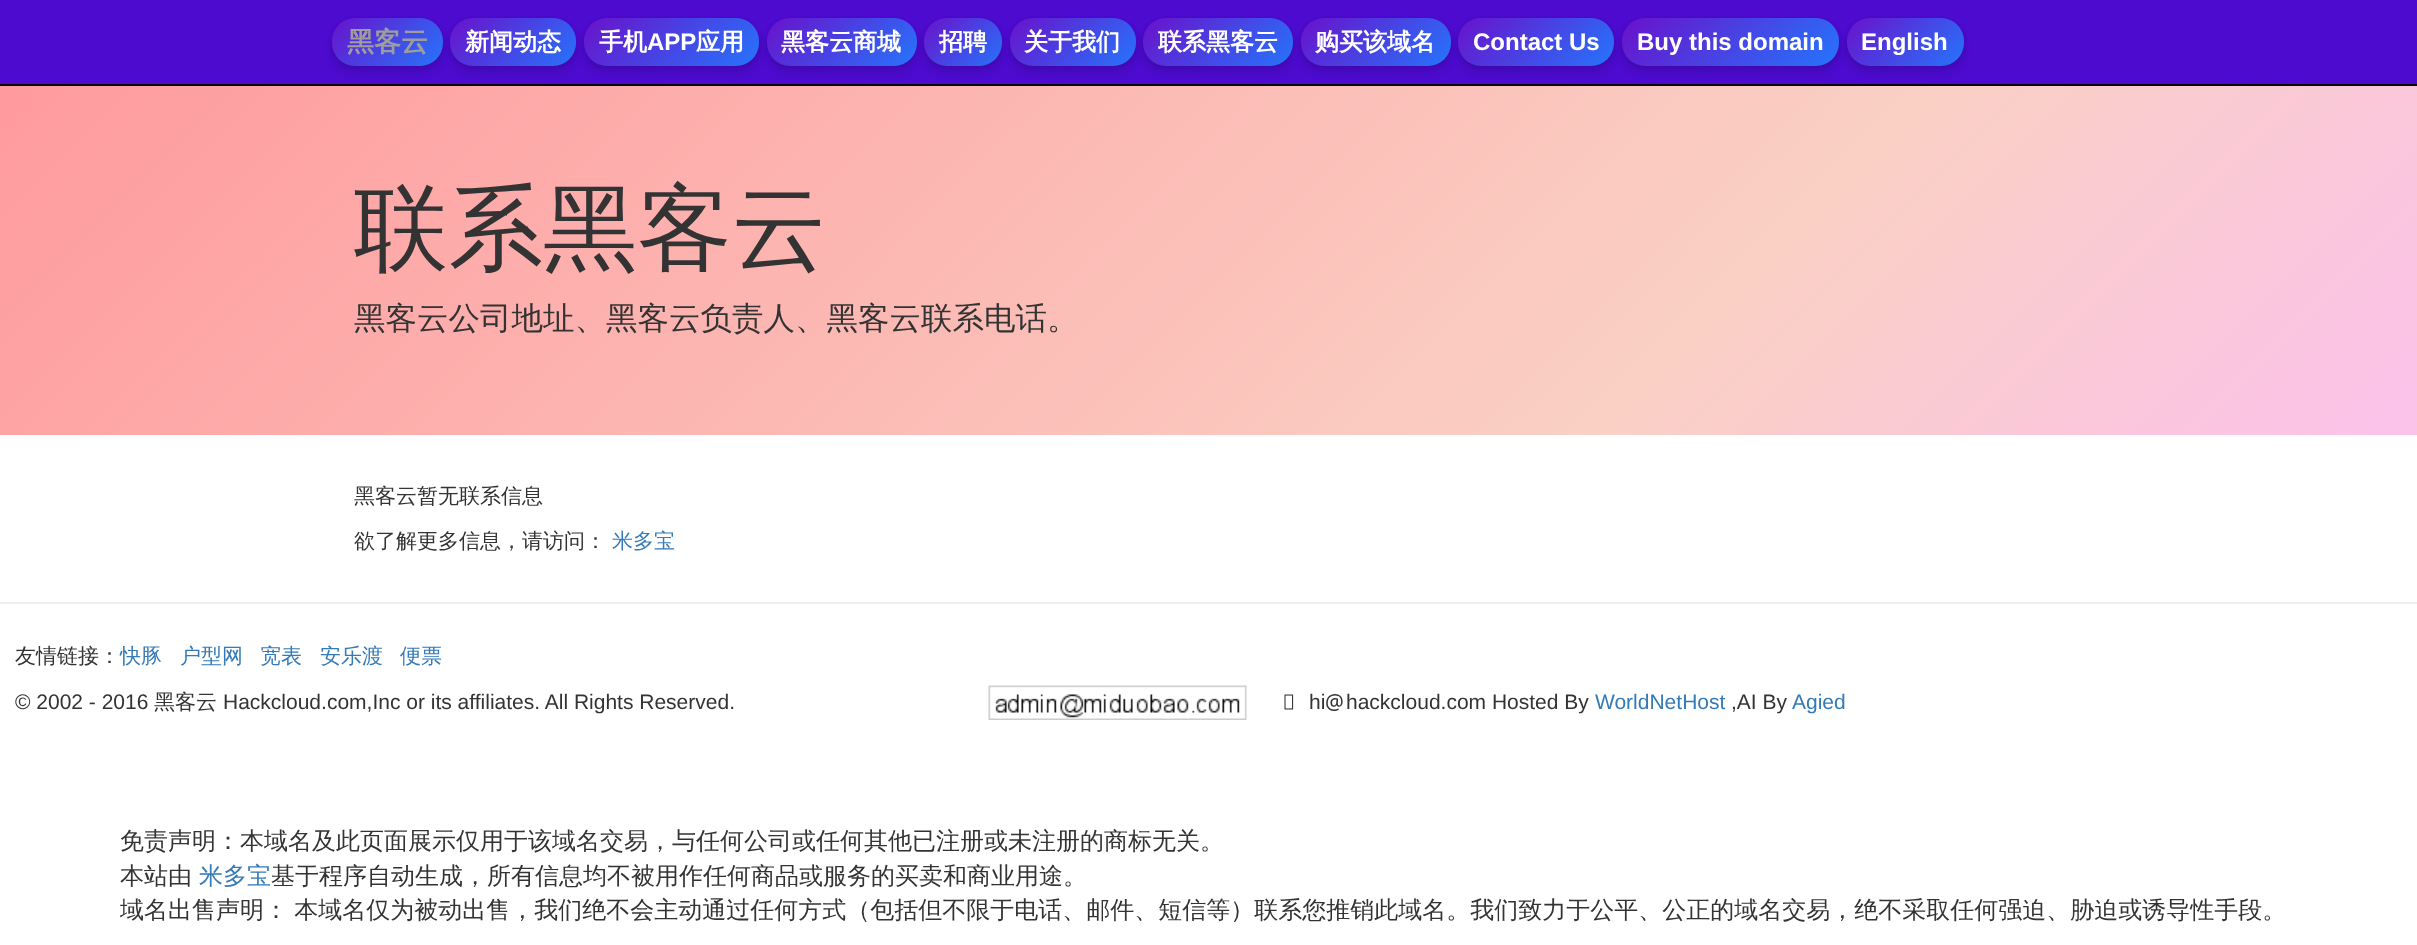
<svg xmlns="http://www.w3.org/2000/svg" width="2417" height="945">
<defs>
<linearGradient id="g1" gradientUnits="userSpaceOnUse" x1="514" y1="-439" x2="1904" y2="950"><stop offset="0" stop-color="#ff9a9e"/><stop offset="0.7" stop-color="#fad0c4"/><stop offset="1" stop-color="#fbc2eb"/></linearGradient>
<linearGradient id="g2" gradientUnits="userSpaceOnUse" x1="347" y1="2.2" x2="427" y2="82"><stop offset="0" stop-color="#6a11cb"/><stop offset="1" stop-color="#2575fc"/></linearGradient>
<linearGradient id="g3" gradientUnits="userSpaceOnUse" x1="470" y1="-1.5" x2="557" y2="86"><stop offset="0" stop-color="#6a11cb"/><stop offset="1" stop-color="#2575fc"/></linearGradient>
<linearGradient id="g4" gradientUnits="userSpaceOnUse" x1="615" y1="-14" x2="727" y2="98"><stop offset="0" stop-color="#6a11cb"/><stop offset="1" stop-color="#2575fc"/></linearGradient>
<linearGradient id="g5" gradientUnits="userSpaceOnUse" x1="792" y1="-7.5" x2="891" y2="92"><stop offset="0" stop-color="#6a11cb"/><stop offset="1" stop-color="#2575fc"/></linearGradient>
<linearGradient id="g6" gradientUnits="userSpaceOnUse" x1="932" y1="11" x2="995" y2="74"><stop offset="0" stop-color="#6a11cb"/><stop offset="1" stop-color="#2575fc"/></linearGradient>
<linearGradient id="g7" gradientUnits="userSpaceOnUse" x1="1029" y1="-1.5" x2="1116" y2="86"><stop offset="0" stop-color="#6a11cb"/><stop offset="1" stop-color="#2575fc"/></linearGradient>
<linearGradient id="g8" gradientUnits="userSpaceOnUse" x1="1169" y1="-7.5" x2="1268" y2="92"><stop offset="0" stop-color="#6a11cb"/><stop offset="1" stop-color="#2575fc"/></linearGradient>
<linearGradient id="g9" gradientUnits="userSpaceOnUse" x1="1326" y1="-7.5" x2="1425" y2="92"><stop offset="0" stop-color="#6a11cb"/><stop offset="1" stop-color="#2575fc"/></linearGradient>
<linearGradient id="g10" gradientUnits="userSpaceOnUse" x1="1485" y1="-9" x2="1587" y2="93"><stop offset="0" stop-color="#6a11cb"/><stop offset="1" stop-color="#2575fc"/></linearGradient>
<linearGradient id="g11" gradientUnits="userSpaceOnUse" x1="1664" y1="-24" x2="1797" y2="108"><stop offset="0" stop-color="#6a11cb"/><stop offset="1" stop-color="#2575fc"/></linearGradient>
<linearGradient id="g12" gradientUnits="userSpaceOnUse" x1="1864" y1="0.8" x2="1946" y2="83"><stop offset="0" stop-color="#6a11cb"/><stop offset="1" stop-color="#2575fc"/></linearGradient>
</defs>
<rect width="100%" height="100%" fill="#fff"/>
<rect width="2417" height="84" fill="#4c0bce"/>
<rect y="84" width="2417" height="2" fill="#080808"/>
<rect x="332" y="20" width="111" height="48" rx="23" fill="#00000014" filter="blur(2px)"/>
<rect y="86" width="2417" height="349" fill="url(#g1)"/>
<rect x="332" y="24" width="111" height="48" rx="23" fill="#0000001a" filter="blur(4.5px)"/>
<rect x="332" y="18" width="111" height="48" rx="23" fill="url(#g2)"/>
<text x="347" y="51" style="font-family:WenQuanYi Zen Hei;font-size:27px;font-weight:bold;fill:#9d9d9d">黑客云</text>
<rect x="450" y="20" width="126" height="48" rx="23" fill="#00000014" filter="blur(2px)"/>
<rect x="450" y="24" width="126" height="48" rx="23" fill="#0000001a" filter="blur(4.5px)"/>
<rect x="450" y="18" width="126" height="48" rx="23" fill="url(#g3)"/>
<text x="465" y="50" style="font-family:WenQuanYi Zen Hei;font-size:24px;font-weight:bold;fill:#fff">新闻动态</text>
<rect x="584" y="20" width="175" height="48" rx="23" fill="#00000014" filter="blur(2px)"/>
<rect x="584" y="24" width="175" height="48" rx="23" fill="#0000001a" filter="blur(4.5px)"/>
<rect x="584" y="18" width="175" height="48" rx="23" fill="url(#g4)"/>
<text x="599" y="50" style="font-family:WenQuanYi Zen Hei;font-size:24px;font-weight:bold;fill:#fff">手机</text>
<text x="647" y="50" style="font-family:Liberation Sans;font-size:24px;font-weight:bold;fill:#fff">APP</text>
<text x="696" y="50" style="font-family:WenQuanYi Zen Hei;font-size:24px;font-weight:bold;fill:#fff">应用</text>
<rect x="767" y="20" width="150" height="48" rx="23" fill="#00000014" filter="blur(2px)"/>
<rect x="767" y="24" width="150" height="48" rx="23" fill="#0000001a" filter="blur(4.5px)"/>
<rect x="767" y="18" width="150" height="48" rx="23" fill="url(#g5)"/>
<text x="781" y="50" style="font-family:WenQuanYi Zen Hei;font-size:24px;font-weight:bold;fill:#fff">黑客云商城</text>
<rect x="924" y="20" width="78" height="48" rx="23" fill="#00000014" filter="blur(2px)"/>
<rect x="924" y="24" width="78" height="48" rx="23" fill="#0000001a" filter="blur(4.5px)"/>
<rect x="924" y="18" width="78" height="48" rx="23" fill="url(#g6)"/>
<text x="939" y="50" style="font-family:WenQuanYi Zen Hei;font-size:24px;font-weight:bold;fill:#fff">招聘</text>
<rect x="1010" y="20" width="126" height="48" rx="23" fill="#00000014" filter="blur(2px)"/>
<rect x="1010" y="24" width="126" height="48" rx="23" fill="#0000001a" filter="blur(4.5px)"/>
<rect x="1010" y="18" width="126" height="48" rx="23" fill="url(#g7)"/>
<text x="1024" y="50" style="font-family:WenQuanYi Zen Hei;font-size:24px;font-weight:bold;fill:#fff">关于我们</text>
<rect x="1143" y="20" width="150" height="48" rx="23" fill="#00000014" filter="blur(2px)"/>
<rect x="1143" y="24" width="150" height="48" rx="23" fill="#0000001a" filter="blur(4.5px)"/>
<rect x="1143" y="18" width="150" height="48" rx="23" fill="url(#g8)"/>
<text x="1158" y="50" style="font-family:WenQuanYi Zen Hei;font-size:24px;font-weight:bold;fill:#fff">联系黑客云</text>
<rect x="1301" y="20" width="150" height="48" rx="23" fill="#00000014" filter="blur(2px)"/>
<rect x="1301" y="24" width="150" height="48" rx="23" fill="#0000001a" filter="blur(4.5px)"/>
<rect x="1301" y="18" width="150" height="48" rx="23" fill="url(#g9)"/>
<text x="1315" y="50" style="font-family:WenQuanYi Zen Hei;font-size:24px;font-weight:bold;fill:#fff">购买该域名</text>
<rect x="1458" y="20" width="156" height="48" rx="23" fill="#00000014" filter="blur(2px)"/>
<rect x="1458" y="24" width="156" height="48" rx="23" fill="#0000001a" filter="blur(4.5px)"/>
<rect x="1458" y="18" width="156" height="48" rx="23" fill="url(#g10)"/>
<text x="1473" y="50" style="font-family:Liberation Sans;font-size:24px;font-weight:bold;fill:#fff">Contact Us</text>
<rect x="1622" y="20" width="217" height="48" rx="23" fill="#00000014" filter="blur(2px)"/>
<rect x="1622" y="24" width="217" height="48" rx="23" fill="#0000001a" filter="blur(4.5px)"/>
<rect x="1622" y="18" width="217" height="48" rx="23" fill="url(#g11)"/>
<text x="1637" y="50" style="font-family:Liberation Sans;font-size:24px;font-weight:bold;fill:#fff">Buy this domain</text>
<rect x="1847" y="20" width="117" height="48" rx="23" fill="#00000014" filter="blur(2px)"/>
<rect x="1847" y="24" width="117" height="48" rx="23" fill="#0000001a" filter="blur(4.5px)"/>
<rect x="1847" y="18" width="117" height="48" rx="23" fill="url(#g12)"/>
<text x="1861" y="50" style="font-family:Liberation Sans;font-size:24px;font-weight:bold;fill:#fff">English</text>
<text x="354" y="261" style="font-family:WenQuanYi Zen Hei;font-size:94.5px;font-weight:500;fill:#333">联系黑客云</text>
<text x="354" y="329" style="font-family:WenQuanYi Zen Hei;font-size:31.5px;font-weight:500;fill:#333">黑客云公司地址、黑客云负责人、黑客云联系电话。</text>
<text x="354" y="503" style="font-family:WenQuanYi Zen Hei;font-size:21px;font-weight:500;fill:#333">黑客云暂无联系信息</text>
<text x="354" y="548" style="font-family:WenQuanYi Zen Hei;font-size:21px;font-weight:500;fill:#333">欲了解更多信息，请访问：</text>
<text x="612" y="548" style="font-family:WenQuanYi Zen Hei;font-size:21px;font-weight:500;fill:#337ab7">米多宝</text>
<rect y="602" width="2417" height="2" fill="#eee"/>
<text x="15" y="663" style="font-family:WenQuanYi Zen Hei;font-size:21px;font-weight:500;fill:#333">友情链接：</text>
<text x="120" y="663" style="font-family:WenQuanYi Zen Hei;font-size:21px;font-weight:500;fill:#337ab7">快豚</text>
<text x="180" y="663" style="font-family:WenQuanYi Zen Hei;font-size:21px;font-weight:500;fill:#337ab7">户型网</text>
<text x="260" y="663" style="font-family:WenQuanYi Zen Hei;font-size:21px;font-weight:500;fill:#337ab7">宽表</text>
<text x="320" y="663" style="font-family:WenQuanYi Zen Hei;font-size:21px;font-weight:500;fill:#337ab7">安乐渡</text>
<text x="400" y="663" style="font-family:WenQuanYi Zen Hei;font-size:21px;font-weight:500;fill:#337ab7">便票</text>
<text x="15" y="709" style="font-family:Liberation Sans;font-size:21px;fill:#333">© 2002 - 2016</text>
<text x="154" y="709" style="font-family:WenQuanYi Zen Hei;font-size:21px;font-weight:500;fill:#333">黑客云</text>
<text x="223" y="709" style="font-family:Liberation Sans;font-size:21px;fill:#333">Hackcloud.com,Inc or its affiliates. All Rights Reserved.</text>
<image x="988" y="685" width="259" height="35" href="media/1.png"/>
<image x="1284" y="694" width="10" height="16" href="media/2.png"/>
<text x="1309" y="709" style="font-family:Liberation Sans;font-size:21px;fill:#333">hi</text>
<text x="1325" y="709" style="font-family:Noto Sans;font-size:21px;fill:#333">@</text>
<text x="1346" y="709" style="font-family:Liberation Sans;font-size:21px;fill:#333">hackcloud.com Hosted By</text>
<text x="1595" y="709" style="font-family:Liberation Sans;font-size:21px;fill:#337ab7">WorldNetHost</text>
<text x="1731" y="709" style="font-family:Liberation Sans;font-size:21px;fill:#333">,AI By</text>
<text x="1792" y="709" style="font-family:Liberation Sans;font-size:21px;fill:#337ab7">Agied</text>
<text x="120" y="849" style="font-family:WenQuanYi Zen Hei;font-size:24px;font-weight:500;fill:#333">免责声明：本域名及此页面展示仅用于该域名交易，与任何公司或任何其他已注册或未注册的商标无关。</text>
<text x="120" y="884" style="font-family:WenQuanYi Zen Hei;font-size:24px;font-weight:500;fill:#333">本站由</text>
<text x="199" y="884" style="font-family:WenQuanYi Zen Hei;font-size:24px;font-weight:500;fill:#337ab7">米多宝</text>
<text x="271" y="884" style="font-family:WenQuanYi Zen Hei;font-size:24px;font-weight:500;fill:#333">基于程序自动生成，所有信息均不被用作任何商品或服务的买卖和商业用途。</text>
<text x="120" y="918" word-spacing="-1" style="font-family:WenQuanYi Zen Hei;font-size:24px;font-weight:500;fill:#333">域名出售声明： 本域名仅为被动出售，我们绝不会主动通过任何方式（包括但不限于电话、邮件、短信等）联系您推销此域名。我们致力于公平、公正的域名交易，绝不采取任何强迫、胁迫或诱导性手段。</text>
</svg>
